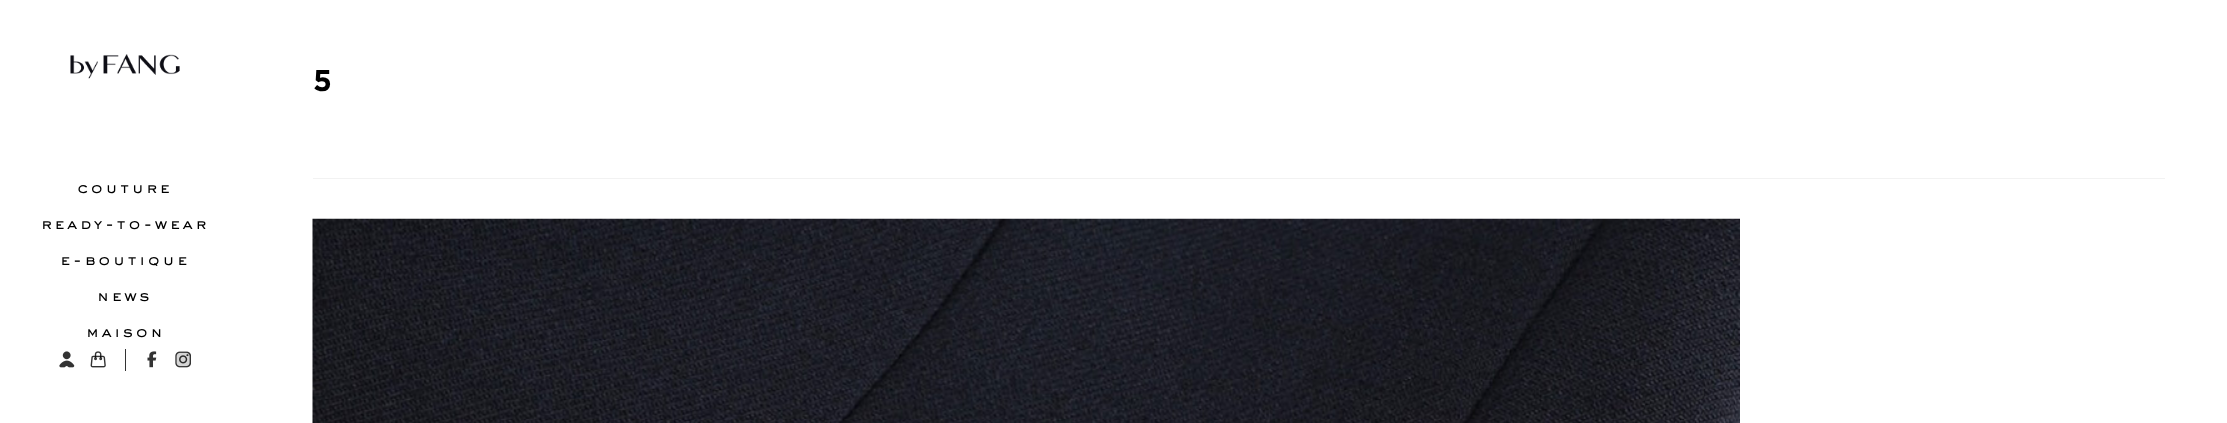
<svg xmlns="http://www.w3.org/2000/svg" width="2227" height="423">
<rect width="100%" height="100%" fill="#fff"/>
<rect x="313" y="178" width="1852" height="1" fill="#f2f2f2"/>
<text x="313" y="91" style="font-family:Gotham;font-size:30px;font-weight:bold;fill:#000">5</text>
<image x="312" y="218" width="1428" height="205" href="media/1.png"/>
<image x="70" y="54" width="110" height="25" href="media/2.png"/>
<image x="59" y="351" width="16" height="17" href="media/3.png"/>
<image x="90" y="351" width="16" height="17" href="media/4.png"/>
<rect x="125" y="349" width="1" height="22" fill="#333"/>
<image x="147" y="351" width="10" height="17" href="media/5.png"/>
<image x="175" y="351" width="16" height="17" href="media/6.png"/>
<text x="77" y="193" style="font-family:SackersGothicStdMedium;font-size:15px;font-weight:500;letter-spacing:2.5px;fill:#000">couture</text>
<text x="41" y="229" style="font-family:SackersGothicStdMedium;font-size:15px;font-weight:500;letter-spacing:2.5px;fill:#000">ready-to-wear</text>
<text x="60" y="265" style="font-family:SackersGothicStdMedium;font-size:15px;font-weight:500;letter-spacing:2.5px;fill:#000">e-boutique</text>
<text x="97" y="301" style="font-family:SackersGothicStdMedium;font-size:15px;font-weight:500;letter-spacing:2.5px;fill:#000">news</text>
<text x="86" y="337" style="font-family:SackersGothicStdMedium;font-size:15px;font-weight:500;letter-spacing:2.5px;fill:#000">maison</text>
</svg>
